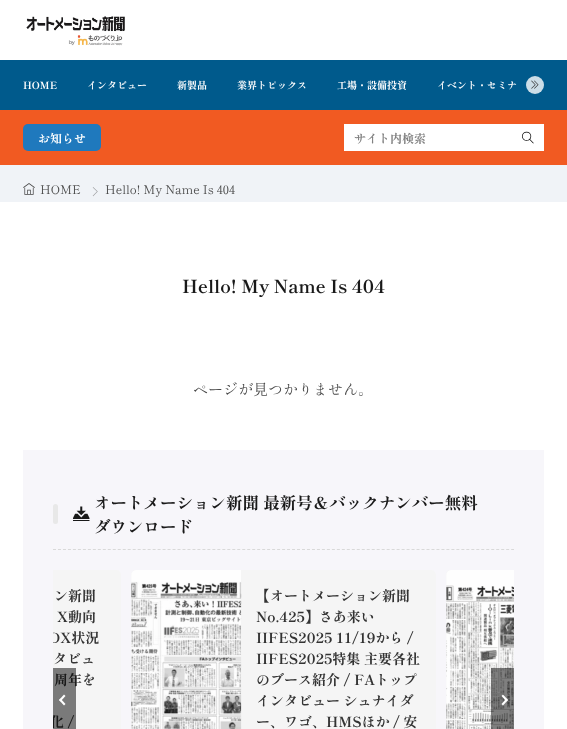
<svg xmlns="http://www.w3.org/2000/svg" width="567" height="729">
<defs>
<clipPath id="clip1"><rect x="53" y="570" width="461" height="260"/></clipPath>
</defs>
<rect width="100%" height="100%" fill="#fff"/>
<image x="26" y="16" width="99" height="30" href="media/1.png"/>
<rect y="60" width="567" height="50" fill="#005a8c"/>
<text x="23" y="89" style="font-family:Shippori Mincho;font-size:10px;font-weight:bold;fill:#fff">HOME</text>
<text x="87" y="89" style="font-family:Shippori Mincho;font-size:10px;font-weight:bold;fill:#fff">インタビュー</text>
<text x="177" y="89" style="font-family:Shippori Mincho;font-size:10px;font-weight:bold;fill:#fff">新製品</text>
<text x="237" y="89" style="font-family:Shippori Mincho;font-size:10px;font-weight:bold;fill:#fff">業界トピックス</text>
<text x="337" y="89" style="font-family:Shippori Mincho;font-size:10px;font-weight:bold;fill:#fff">工場・設備投資</text>
<text x="437" y="89" style="font-family:Shippori Mincho;font-size:10px;font-weight:bold;fill:#fff">イベント・セミナ</text>
<circle cx="535" cy="85" r="9" fill="#ccdee8"/>
<text x="530" y="89" style="font-family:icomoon;font-size:10px;fill:#333">󢁡</text>
<rect y="110" width="567" height="55" fill="#f15a22"/>
<rect x="23" y="124" width="78" height="27" rx="5" fill="#1f79bd"/>
<text x="38" y="143" style="font-family:Shippori Mincho;font-size:12px;font-weight:bold;fill:#fff">お知らせ</text>
<rect x="344" y="124" width="200" height="27" fill="#fff"/>
<text x="354" y="143" style="font-family:Shippori Mincho;font-size:12px;font-weight:bold;fill:#808080">サイト内検索</text>
<text x="522" y="143" style="font-family:icomoon;font-size:12px;fill:#000">󢀐</text>
<rect y="165" width="567" height="37" fill="#f0f3f7"/>
<text x="23" y="194" style="font-family:icomoon;font-size:12px;fill:#494949">󢂛</text>
<text x="40" y="194" style="font-family:Shippori Mincho;font-size:12px;fill:#494949">HOME</text>
<text x="90" y="196" style="font-family:icomoon;font-size:10px;fill:#9d9ea0">󢁉</text>
<text x="105" y="194" style="font-family:Shippori Mincho;font-size:12px;fill:#494949">Hello! My Name Is 404</text>
<text x="182" y="293" style="font-family:Shippori Mincho;font-size:18px;font-weight:bold;fill:#191919">Hello! My Name Is 404</text>
<text x="193" y="395" style="font-family:Shippori Mincho;font-size:15px;fill:#494949">ページが見つかりません。</text>
<rect x="23" y="450" width="521" height="279" fill="#f7f6fa"/>
<path d="M53 549.5h461" fill="none" stroke="#d9d9d9" stroke-dasharray="3 1.98"/>
<rect x="53" y="504" width="5" height="20" rx="2.5" fill="#e8e8e8"/>
<text x="73" y="521" style="font-family:icomoon;font-size:16.5px;fill:#191919">󡃅</text>
<text x="94" y="509" style="font-family:Shippori Mincho;font-size:16.5px;font-weight:bold;fill:#191919">オートメーション新聞 最新号＆バックナンバー無料</text>
<text x="94" y="533" style="font-family:Shippori Mincho;font-size:16.5px;font-weight:bold;fill:#191919">ダウンロード</text>
<path d="M53 570h63c3 0 5 2 5 5v154c0 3-2 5-5 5h-63z" fill="#f5f5f5"/>
<text x="54" y="601" style="font-family:Shippori Mincho;font-size:14px;font-weight:bold;fill:#333">ン新聞</text>
<text x="57" y="622" style="font-family:Shippori Mincho;font-size:14px;font-weight:bold;fill:#333">X動向</text>
<g clip-path="url(#clip1)">
<text x="49" y="643" style="font-family:Shippori Mincho;font-size:14px;font-weight:bold;fill:#333">DX状況</text>
</g>
<text x="53" y="664" style="font-family:Shippori Mincho;font-size:14px;font-weight:bold;fill:#333">タビュ</text>
<text x="54" y="685" style="font-family:Shippori Mincho;font-size:14px;font-weight:bold;fill:#333">周年を</text>
<g clip-path="url(#clip1)">
<text x="50" y="727" style="font-family:Shippori Mincho;font-size:14px;font-weight:bold;fill:#333">化 /</text>
</g>
<rect x="131" y="570" width="305" height="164" rx="5" fill="#f5f5f5"/>
<image x="131" y="570" width="111" height="159" href="media/2.png"/>
<text x="256" y="601" style="font-family:Shippori Mincho;font-size:14px;font-weight:bold;fill:#333">【オートメーション新聞</text>
<text x="256" y="622" style="font-family:Shippori Mincho;font-size:14px;font-weight:bold;fill:#333">No.425】さあ来い</text>
<text x="256" y="643" style="font-family:Shippori Mincho;font-size:14px;font-weight:bold;fill:#333">IIFES2025 11/19から /</text>
<text x="256" y="664" style="font-family:Shippori Mincho;font-size:14px;font-weight:bold;fill:#333">IIFES2025特集 主要各社</text>
<text x="256" y="685" style="font-family:Shippori Mincho;font-size:14px;font-weight:bold;fill:#333">のブース紹介 / FAトップ</text>
<text x="256" y="706" style="font-family:Shippori Mincho;font-size:14px;font-weight:bold;fill:#333">インタビュー シュナイダ</text>
<text x="256" y="727" style="font-family:Shippori Mincho;font-size:14px;font-weight:bold;fill:#333">ー、ワゴ、HMSほか / 安</text>
<path d="M451 570h63v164h-63c-3 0-5-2-5-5v-154c0-3 2-5 5-5z" fill="#f5f5f5"/>
<image x="446" y="570" width="68" height="159" href="media/3.png"/>
<rect x="53" y="668" width="23" height="61" fill="#00000080"/>
<path d="M64 705.5l-5-5.5l1.5-1.5l5 5.5z" fill="#fff"/>
<path d="M60.5 701.5l-1.5-1.5l5-5.5l1.5 1.5z" fill="#fff"/>
<rect x="491" y="668" width="23" height="61" fill="#00000080"/>
<path d="M503 694.5l5 5.5l-1.5 1.5l-5-5.5z" fill="#fff"/>
<path d="M506.5 698.5l1.5 1.5l-5 5.5l-1.5-1.5z" fill="#fff"/>
</svg>
